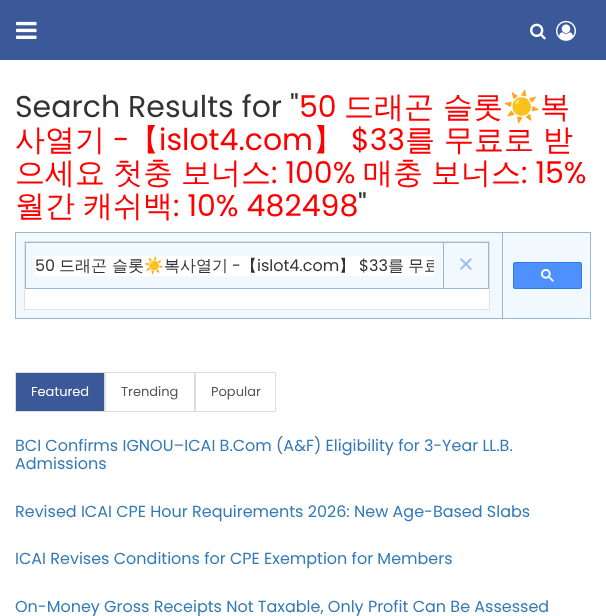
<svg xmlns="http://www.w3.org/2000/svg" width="606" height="616">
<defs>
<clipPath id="clip1"><rect x="35" y="256" width="399" height="20"/></clipPath>
</defs>
<rect width="100%" height="100%" fill="#fff"/>
<rect width="606" height="60" fill="#3b5998"/>
<image x="16" y="21" width="21" height="18" href="media/1.png"/>
<image x="530" y="23" width="16" height="17" href="media/2.png"/>
<image x="556" y="20" width="20" height="21" href="media/3.png"/>
<text x="15" y="117" style="font-family:Poppins;font-size:30px;fill:#333">Search Results for "</text>
<text x="299" y="117" style="font-family:Poppins;font-size:30px;fill:#f00">50</text>
<text x="344" y="117" style="font-family:WenQuanYi Zen Hei;font-size:30px;font-weight:500;fill:#f00">드래곤 슬롯</text>
<text x="503" y="117" style="font-family:Noto Color Emoji;font-size:30px;fill:#f00">☀️</text>
<text x="540" y="117" style="font-family:WenQuanYi Zen Hei;font-size:30px;font-weight:500;fill:#f00">복</text>
<text x="15" y="150" style="font-family:WenQuanYi Zen Hei;font-size:30px;font-weight:500;fill:#f00">사열기</text>
<text x="113" y="150" style="font-family:Poppins;font-size:30px;fill:#f00">-</text>
<text x="129" y="150" style="font-family:WenQuanYi Zen Hei;font-size:30px;font-weight:500;fill:#f00">【</text>
<text x="159" y="150" style="font-family:Poppins;font-size:30px;fill:#f00">islot4.com</text>
<text x="313" y="150" style="font-family:WenQuanYi Zen Hei;font-size:30px;font-weight:500;fill:#f00">】</text>
<text x="351" y="150" style="font-family:Poppins;font-size:30px;fill:#f00">$33</text>
<text x="405" y="150" style="font-family:WenQuanYi Zen Hei;font-size:30px;font-weight:500;fill:#f00">를 무료로 받</text>
<text x="15" y="183" style="font-family:WenQuanYi Zen Hei;font-size:30px;font-weight:500;fill:#f00">으세요</text>
<text x="113" y="183" style="font-family:WenQuanYi Zen Hei;font-size:30px;font-weight:500;fill:#f00">첫충</text>
<text x="181" y="183" style="font-family:WenQuanYi Zen Hei;font-size:30px;font-weight:500;fill:#f00">보너스</text>
<text x="271" y="183" style="font-family:Poppins;font-size:30px;fill:#f00">: 100%</text>
<text x="363" y="183" style="font-family:WenQuanYi Zen Hei;font-size:30px;font-weight:500;fill:#f00">매충</text>
<text x="431" y="183" style="font-family:WenQuanYi Zen Hei;font-size:30px;font-weight:500;fill:#f00">보너스</text>
<text x="521" y="183" style="font-family:Poppins;font-size:30px;fill:#f00">: 15%</text>
<text x="15" y="216" style="font-family:WenQuanYi Zen Hei;font-size:30px;font-weight:500;fill:#f00">월간</text>
<text x="83" y="216" style="font-family:WenQuanYi Zen Hei;font-size:30px;font-weight:500;fill:#f00">캐쉬백</text>
<text x="173" y="216" style="font-family:Poppins;font-size:30px;fill:#f00">: 10% 482498</text>
<text x="358" y="216" style="font-family:Poppins;font-size:30px;fill:#333">"</text>
<rect x="16" y="233" width="574" height="85" fill="#f1f9ff"/>
<rect x="502" y="232" width="89" height="1" fill="#97b9d7"/>
<rect x="590" y="232" width="1" height="87" fill="#97b9d7"/>
<rect x="502" y="318" width="89" height="1" fill="#97b9d7"/>
<rect x="502" y="232" width="1" height="87" fill="#97b9d7"/>
<rect x="15" y="232" width="488" height="1" fill="#97b9d7"/>
<rect x="15" y="318" width="488" height="1" fill="#97b9d7"/>
<rect x="15" y="232" width="1" height="87" fill="#97b9d7"/>
<rect x="25" y="289" width="464" height="20" fill="#fff"/>
<rect x="24.5" y="241.5" width="465" height="68" fill="none" stroke="#dfe1e5"/>
<rect x="25" y="242" width="464" height="1" fill="#97b9d7"/>
<rect x="488" y="242" width="1" height="47" fill="#97b9d7"/>
<rect x="25" y="288" width="464" height="1" fill="#97b9d7"/>
<rect x="25" y="242" width="1" height="47" fill="#97b9d7"/>
<rect x="35" y="256" width="399" height="20" fill="#fff"/>
<text x="35" y="271" style="font-family:Poppins;font-size:16px;fill:#333">50</text>
<text x="59" y="271" style="font-family:WenQuanYi Zen Hei;font-size:16px;font-weight:500;fill:#333">드래곤</text>
<text x="112" y="271" style="font-family:WenQuanYi Zen Hei;font-size:16px;font-weight:500;fill:#333">슬롯</text>
<text x="144" y="271" style="font-family:Noto Color Emoji;font-size:16px;fill:#333">☀️</text>
<text x="164" y="271" style="font-family:WenQuanYi Zen Hei;font-size:16px;font-weight:500;fill:#333">복사열기</text>
<text x="232" y="271" style="font-family:Poppins;font-size:16px;fill:#333">-</text>
<text x="241" y="271" style="font-family:WenQuanYi Zen Hei;font-size:16px;font-weight:500;fill:#333">【</text>
<text x="257" y="271" style="font-family:Poppins;font-size:16px;fill:#333">islot4.com</text>
<text x="339" y="271" style="font-family:WenQuanYi Zen Hei;font-size:16px;font-weight:500;fill:#333">】</text>
<text x="359" y="271" style="font-family:Poppins;font-size:16px;fill:#333">$33</text>
<text x="388" y="271" style="font-family:WenQuanYi Zen Hei;font-size:16px;font-weight:500;fill:#333">를</text>
<g clip-path="url(#clip1)">
<text x="408" y="271" style="font-family:WenQuanYi Zen Hei;font-size:16px;font-weight:500;fill:#333">무료</text>
</g>
<rect x="443" y="242" width="1" height="47" fill="#97b9d7"/>
<text x="458" y="273" style="font-family:Liberation Sans;font-size:27px;fill:#a1b9ed">×</text>
<rect x="513.5" y="262.5" width="68" height="26" rx="1.5" fill="#4d90fe" stroke="#3079ed"/>
<image x="541" y="269" width="13" height="13" href="media/4.png"/>
<rect x="15.5" y="372.5" width="89" height="39" fill="#3b5998" stroke="#ddd"/>
<text x="31" y="396" style="font-family:Poppins;font-size:13px;fill:#fff">Featured</text>
<rect x="105.5" y="372.5" width="89" height="39" fill="none" stroke="#ddd"/>
<text x="121" y="396" style="font-family:Poppins;font-size:13px;fill:#555">Trending</text>
<rect x="195.5" y="372.5" width="80" height="39" fill="none" stroke="#ddd"/>
<text x="211" y="396" style="font-family:Poppins;font-size:13px;fill:#555">Popular</text>
<text x="15" y="451" style="font-family:Poppins;font-size:16px;fill:#337ab7">BCI Confirms IGNOU–ICAI B.Com (A&amp;F) Eligibility for 3-Year LL.B.</text>
<text x="15" y="469" style="font-family:Poppins;font-size:16px;fill:#337ab7">Admissions</text>
<text x="15" y="517" style="font-family:Poppins;font-size:16px;fill:#337ab7">Revised ICAI CPE Hour Requirements 2026: New Age-Based Slabs</text>
<text x="15" y="564" style="font-family:Poppins;font-size:16px;fill:#337ab7">ICAI Revises Conditions for CPE Exemption for Members</text>
<text x="15" y="612" style="font-family:Poppins;font-size:16px;fill:#337ab7">On-Money Gross Receipts Not Taxable, Only Profit Can Be Assessed</text>
</svg>
